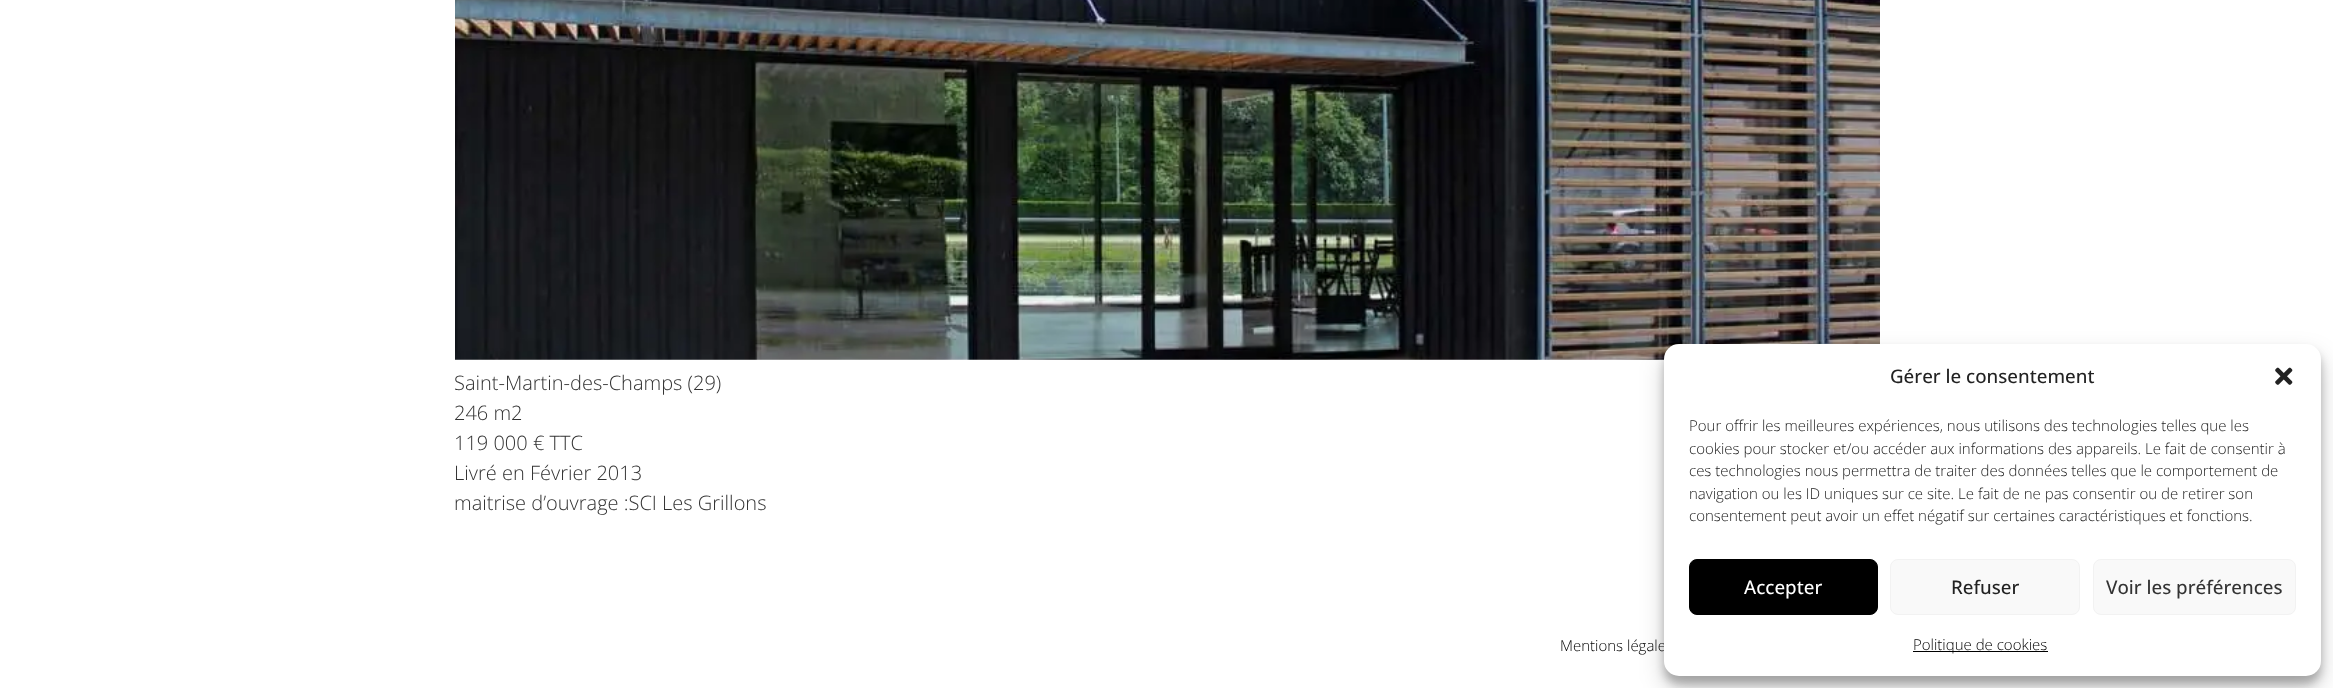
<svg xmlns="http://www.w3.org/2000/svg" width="2333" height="688">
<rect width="100%" height="100%" fill="#fff"/>
<image x="455" y="0" width="1425" height="360" href="media/1.png"/>
<text x="454" y="390" style="font-family:Open Sans;font-size:20px;font-weight:300;fill:#333">Saint-Martin-des-Champs (29)</text>
<text x="454" y="420" style="font-family:Open Sans;font-size:20px;font-weight:300;fill:#333">246 m2</text>
<text x="454" y="450" style="font-family:Open Sans;font-size:20px;font-weight:300;fill:#333">119 000 € TTC</text>
<text x="454" y="480" style="font-family:Open Sans;font-size:20px;font-weight:300;fill:#333">Livré en Février 2013</text>
<text x="454" y="510" style="font-family:Open Sans;font-size:20px;font-weight:300;fill:#333">maitrise d’ouvrage :SCI Les Grillons</text>
<rect x="1664" y="351" width="657" height="333" rx="15" fill="#0000003b" filter="blur(4px)"/>
<rect x="1664" y="356" width="657" height="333" rx="15" fill="#00000030" filter="blur(12.5px)"/>
<text x="1560" y="651" style="font-family:Open Sans;font-size:15px;font-weight:300;fill:#000">Mentions légale</text>
<rect x="1664" y="344" width="657" height="332" rx="15" fill="#fff"/>
<text x="1890" y="383" style="font-family:Open Sans;font-size:18.75px;font-weight:500;fill:#222">Gérer le consentement</text>
<image x="2275" y="367" width="18" height="18" href="media/2.png"/>
<text x="1689" y="431" style="font-family:Open Sans;font-size:15px;font-weight:300;fill:#222">Pour offrir les meilleures expériences, nous utilisons des technologies telles que les</text>
<text x="1689" y="454" style="font-family:Open Sans;font-size:15px;font-weight:300;fill:#222">cookies pour stocker et/ou accéder aux informations des appareils. Le fait de consentir à</text>
<text x="1689" y="476" style="font-family:Open Sans;font-size:15px;font-weight:300;fill:#222">ces technologies nous permettra de traiter des données telles que le comportement de</text>
<text x="1689" y="499" style="font-family:Open Sans;font-size:15px;font-weight:300;fill:#222">navigation ou les ID uniques sur ce site. Le fait de ne pas consentir ou de retirer son</text>
<text x="1689" y="521" style="font-family:Open Sans;font-size:15px;font-weight:300;fill:#222">consentement peut avoir un effet négatif sur certaines caractéristiques et fonctions.</text>
<rect x="1689.5" y="559.5" width="188" height="55" rx="7.5" fill="#000" stroke="#000"/>
<text x="1744" y="594" style="font-family:Open Sans;font-size:18.75px;font-weight:500;fill:#fff">Accepter</text>
<rect x="1890.5" y="559.5" width="189" height="55" rx="7.5" fill="#f9f9f9" stroke="#f2f2f2"/>
<text x="1951" y="594" style="font-family:Open Sans;font-size:18.75px;font-weight:500;fill:#222">Refuser</text>
<rect x="2093.5" y="559.5" width="202" height="55" rx="7.5" fill="#f9f9f9" stroke="#f2f2f2"/>
<text x="2106" y="594" style="font-family:Open Sans;font-size:18.75px;font-weight:500;fill:#333">Voir les préférences</text>
<rect x="1913" y="651" width="135" height="1" fill="#000"/>
<text x="1913" y="650" style="font-family:Open Sans;font-size:15px;font-weight:300;fill:#000">Politique de cookies</text>
</svg>
